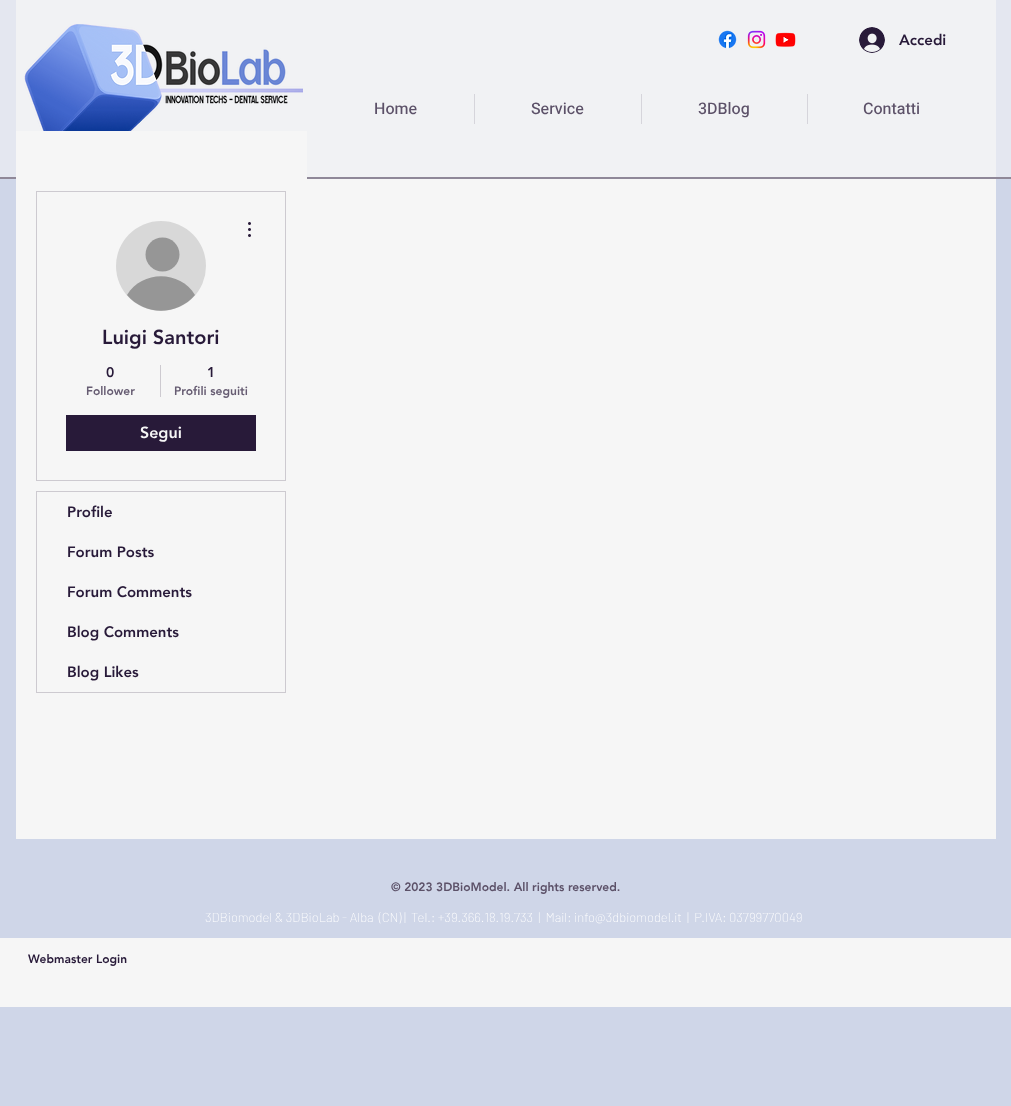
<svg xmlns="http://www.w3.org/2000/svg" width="1011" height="1106">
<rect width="100%" height="100%" fill="#cfd6e8"/>
<rect width="1011" height="177" fill="#e4e7f0"/>
<rect y="177" width="1011" height="2" fill="#8f8898"/>
<rect x="16" width="980" height="177" fill="#f1f2f4"/>
<image x="24" y="24" width="279" height="107" href="media/1.png"/>
<image x="718" y="30" width="19" height="19" href="media/2.png"/>
<image x="747" y="30" width="19" height="19" href="media/3.png"/>
<image x="775" y="32" width="21" height="15" href="media/4.png"/>
<image x="859" y="27" width="26" height="26" href="media/5.png"/>
<text x="899" y="45" style="font-family:'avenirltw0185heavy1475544';font-size:15px;font-weight:900;fill:#281a39">Accedi</text>
<text x="374" y="114" style="font-family:Heebo;font-size:16px;font-weight:500;fill:#5c5168">Home</text>
<rect x="474" y="94" width="1" height="30" fill="#d6d5db"/>
<text x="531" y="114" style="font-family:Heebo;font-size:16px;font-weight:500;fill:#5c5168">Service</text>
<rect x="641" y="94" width="1" height="30" fill="#d6d5db"/>
<text x="698" y="114" style="font-family:Heebo;font-size:16px;font-weight:500;fill:#5c5168">3DBlog</text>
<rect x="807" y="94" width="1" height="30" fill="#d6d5db"/>
<text x="863" y="114" style="font-family:Heebo;font-size:16px;font-weight:500;fill:#5c5168">Contatti</text>
<rect x="16" y="179" width="980" height="660" fill="#f6f6f6"/>
<rect x="16" y="131" width="291" height="48" fill="#f6f6f6"/>
<rect x="36.5" y="191.5" width="249" height="289" fill="none" stroke="#cdcad0"/>
<circle cx="161" cy="266" r="45" fill="#d8d8d8"/>
<circle cx="162.5" cy="254.5" r="17" fill="#969696"/>
<path d="M195 295c-18 21-50 21-68 0c15-25 53-25 68 0z" fill="#969696"/>
<image x="248" y="222" width="3" height="15" href="media/6.png"/>
<text x="102" y="344" style="font-family:'avenirltw0185heavy1475544';font-size:20px;font-weight:900;fill:#281a39">Luigi Santori</text>
<text x="106" y="377" style="font-family:'avenirltw0185heavy1475544';font-size:14px;font-weight:900;fill:#281a39">0</text>
<text x="86" y="395" style="font-family:'avenirltw0185heavy1475544';font-size:12px;font-weight:900;fill:#665c72">Follower</text>
<rect x="160" y="365" width="1" height="32" fill="#cdcad0"/>
<text x="207" y="377" style="font-family:'avenirltw0185heavy1475544';font-size:14px;font-weight:900;fill:#281a39">1</text>
<text x="174" y="395" style="font-family:'avenirltw0185heavy1475544';font-size:12px;font-weight:900;fill:#665c72">Profili seguiti</text>
<rect x="66" y="415" width="190" height="36" fill="#281a39"/>
<text x="140" y="438" style="font-family:'avenirltw0185heavy1475544';font-size:16px;font-weight:900;fill:#f6f6f6">Segui</text>
<rect x="36.5" y="491.5" width="249" height="201" fill="none" stroke="#cdcad0"/>
<text x="67" y="517" style="font-family:'avenirltw0185heavy1475544';font-size:15px;font-weight:900;fill:#281a39">Profile</text>
<text x="67" y="557" style="font-family:'avenirltw0185heavy1475544';font-size:15px;font-weight:900;fill:#281a39">Forum Posts</text>
<text x="67" y="597" style="font-family:'avenirltw0185heavy1475544';font-size:15px;font-weight:900;fill:#281a39">Forum Comments</text>
<text x="67" y="637" style="font-family:'avenirltw0185heavy1475544';font-size:15px;font-weight:900;fill:#281a39">Blog Comments</text>
<text x="67" y="677" style="font-family:'avenirltw0185heavy1475544';font-size:15px;font-weight:900;fill:#281a39">Blog Likes</text>
<text x="391" y="891" style="font-family:'avenirltw0185heavy1475544';font-size:12px;font-weight:900;fill:#5c5168">© 2023 3DBioModel. All rights reserved.</text>
<text x="205" y="922" style="font-family:Barlow;font-size:13px;font-weight:200;fill:#fff" xml:space="preserve">3DBiomodel &amp; 3DBioLab - Alba  (CN) |  Tel.: +39.366.18.19.733  |  Mail: info@3dbiomodel.it</text>
<text x="687" y="922" style="font-family:Barlow;font-size:13px;font-weight:200;fill:#fff" xml:space="preserve">|  P.IVA: 03799770049</text>
<rect y="938" width="1011" height="69" fill="#f6f6f6"/>
<text x="28" y="963" style="font-family:'avenirltw0185heavy1475544';font-size:12px;font-weight:900;fill:#281a39">Webmaster Login</text>
</svg>
